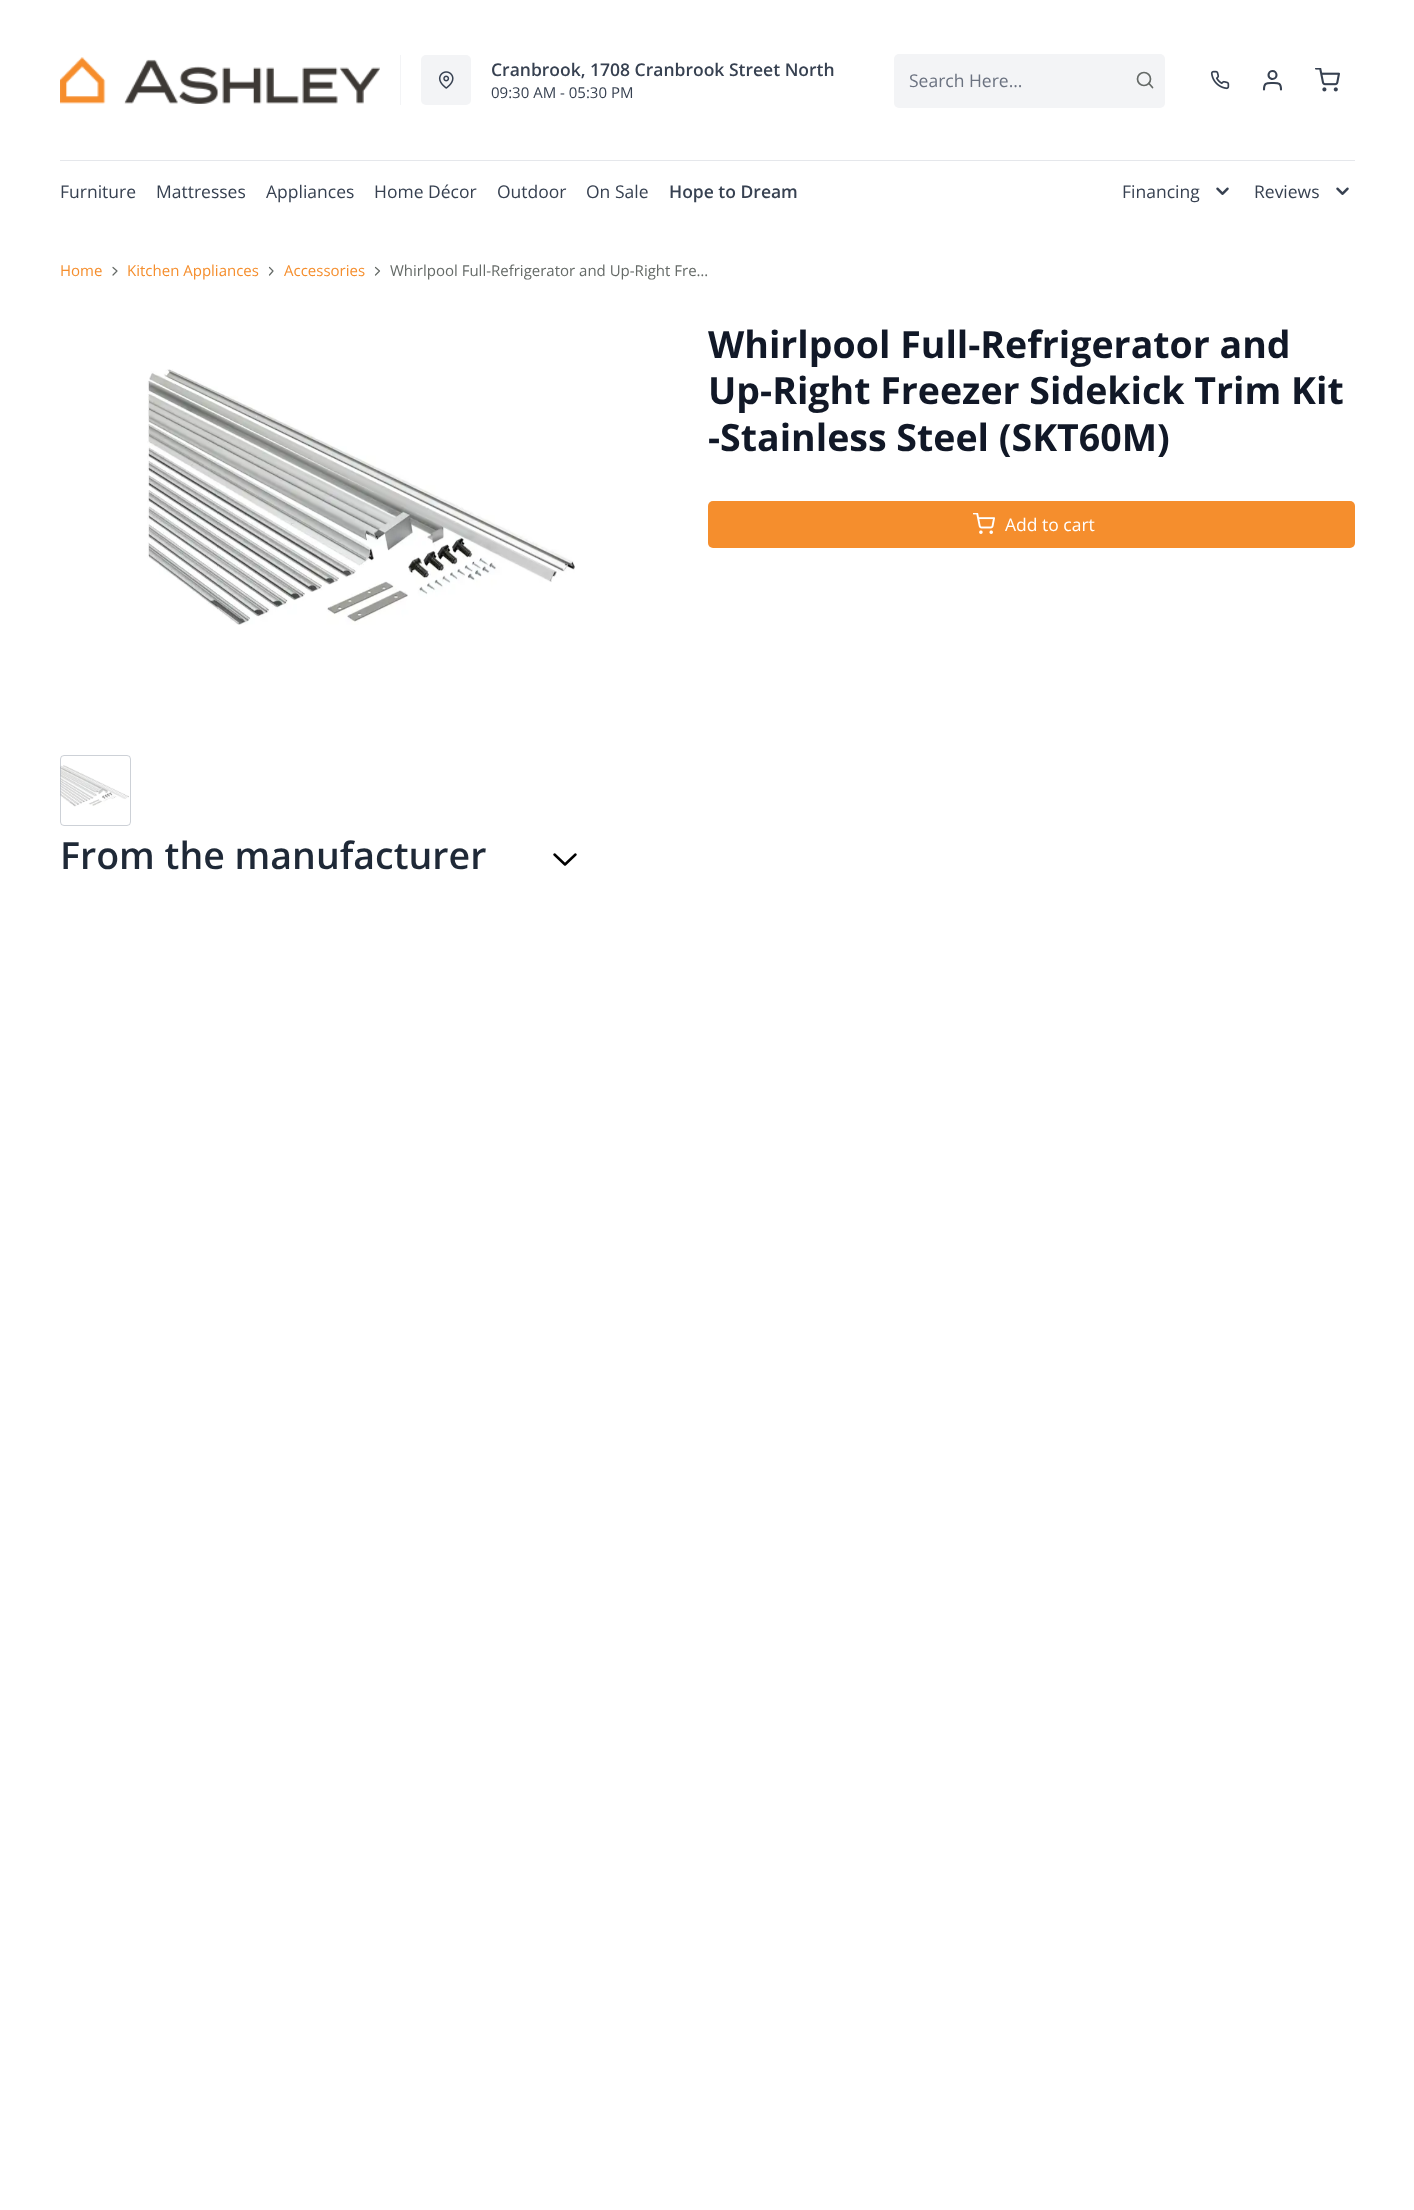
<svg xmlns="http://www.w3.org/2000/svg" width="1414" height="2210">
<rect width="100%" height="100%" fill="#fff"/>
<image x="60" y="57" width="320" height="47" href="media/1.png"/>
<rect x="400" y="55" width="1" height="50" fill="#f3f4f6"/>
<rect x="421" y="55" width="50" height="50" rx="5" fill="#f3f4f6"/>
<image x="438" y="71" width="16" height="18" href="media/2.png"/>
<text x="491" y="76" style="font-family:Open Sans;font-size:17.5px;font-weight:600;fill:#374151">Cranbrook, 1708 Cranbrook Street North</text>
<text x="491" y="98" style="font-family:Open Sans;font-size:15px;fill:#374151">09:30 AM - 05:30 PM</text>
<rect x="894" y="54" width="271" height="54" rx="5" fill="#f3f4f6"/>
<text x="909" y="87" style="font-family:Open Sans;font-size:17.5px;fill:#6b7280">Search Here...</text>
<circle cx="1144" cy="79" r="6.5" fill="none" stroke="#656a67" stroke-width="1.7"/>
<path d="M1152.5 87.5l-3.5-4" fill="none" stroke="#656a67" stroke-width="1.7" stroke-linecap="round" stroke-linejoin="round"/>
<image x="1210" y="70" width="20" height="20" href="media/3.png"/>
<path d="M1281 89.5c0-7-2.5-6.5-8.5-6.5c-6 0-8.5-.5-8.5 6.5" fill="none" stroke="#374151" stroke-width="2.1" stroke-linecap="round" stroke-linejoin="round"/>
<circle cx="1272.5" cy="75" r="4" fill="none" stroke="#374151" stroke-width="2.1"/>
<image x="1315" y="68" width="25" height="24" href="media/4.png"/>
<rect x="60" y="160" width="1295" height="1" fill="#e5e7eb"/>
<text x="60" y="198" style="font-family:Open Sans;font-size:17.5px;fill:#374151">Furniture</text>
<text x="156" y="198" style="font-family:Open Sans;font-size:17.5px;fill:#374151">Mattresses</text>
<text x="266" y="198" style="font-family:Open Sans;font-size:17.5px;fill:#374151">Appliances</text>
<text x="374" y="198" style="font-family:Open Sans;font-size:17.5px;fill:#374151">Home Décor</text>
<text x="497" y="198" style="font-family:Open Sans;font-size:17.5px;fill:#374151">Outdoor</text>
<text x="586" y="198" style="font-family:Open Sans;font-size:17.5px;fill:#374151">On Sale</text>
<text x="669" y="198" style="font-family:Open Sans;font-size:17.5px;font-weight:600;fill:#374151">Hope to Dream</text>
<text x="1122" y="198" style="font-family:Open Sans;font-size:17.5px;fill:#374151">Financing</text>
<image x="1216" y="187" width="13" height="8" href="media/5.png"/>
<text x="1254" y="198" style="font-family:Open Sans;font-size:17.5px;fill:#374151">Reviews</text>
<image x="1336" y="187" width="13" height="8" href="media/5.png"/>
<text x="60" y="276" style="font-family:Open Sans;font-size:15px;fill:#f58e2d">Home</text>
<path d="M113 275l4-4l-4-3.5" fill="none" stroke="#656a67" stroke-width="1.2" stroke-linecap="round" stroke-linejoin="round"/>
<text x="127" y="276" style="font-family:Open Sans;font-size:15px;fill:#f58e2d">Kitchen Appliances</text>
<path d="M269.5 275l3.5-4l-3.5-3.5" fill="none" stroke="#656a67" stroke-width="1.2" stroke-linecap="round" stroke-linejoin="round"/>
<text x="284" y="276" style="font-family:Open Sans;font-size:15px;fill:#f58e2d">Accessories</text>
<path d="M375.5 275l4-4l-4-3.5" fill="none" stroke="#656a67" stroke-width="1.2" stroke-linecap="round" stroke-linejoin="round"/>
<text x="390" y="276" style="font-family:Open Sans;font-size:15px;fill:#656a67">Whirlpool Full-Refrigerator and Up-Right Fre…</text>
<image x="147" y="369" width="428" height="256" href="media/6.png"/>
<image x="60" y="765" width="69" height="42" href="media/7.png"/>
<rect x="60" y="755" width="71" height="71" rx="4" fill="#ffffff80"/>
<rect x="60.5" y="755.5" width="70" height="70" rx="3.5" fill="none" stroke="#9ca3af80"/>
<text x="708" y="358" style="font-family:Open Sans;font-size:37.5px;font-weight:bold;fill:#111827">Whirlpool Full-Refrigerator and</text>
<text x="708" y="404" style="font-family:Open Sans;font-size:37.5px;font-weight:bold;fill:#111827">Up-Right Freezer Sidekick Trim Kit</text>
<text x="708" y="451" style="font-family:Open Sans;font-size:37.5px;font-weight:bold;fill:#111827">-Stainless Steel (SKT60M)</text>
<rect x="708" y="501" width="647" height="47" rx="5" fill="#f58e2d"/>
<image x="973" y="513" width="22" height="21" href="media/8.png"/>
<text x="1005" y="531" style="font-family:Open Sans;font-size:17.5px;fill:#fff">Add to cart</text>
<text x="60" y="869" style="font-family:Open Sans;font-size:37.5px;font-weight:600;fill:#1f2937">From the manufacturer</text>
<path d="M554.5 854.5l10.5 10l10.5-10" fill="none" stroke="#000" stroke-width="2.5" stroke-linecap="round" stroke-linejoin="round"/>
</svg>
